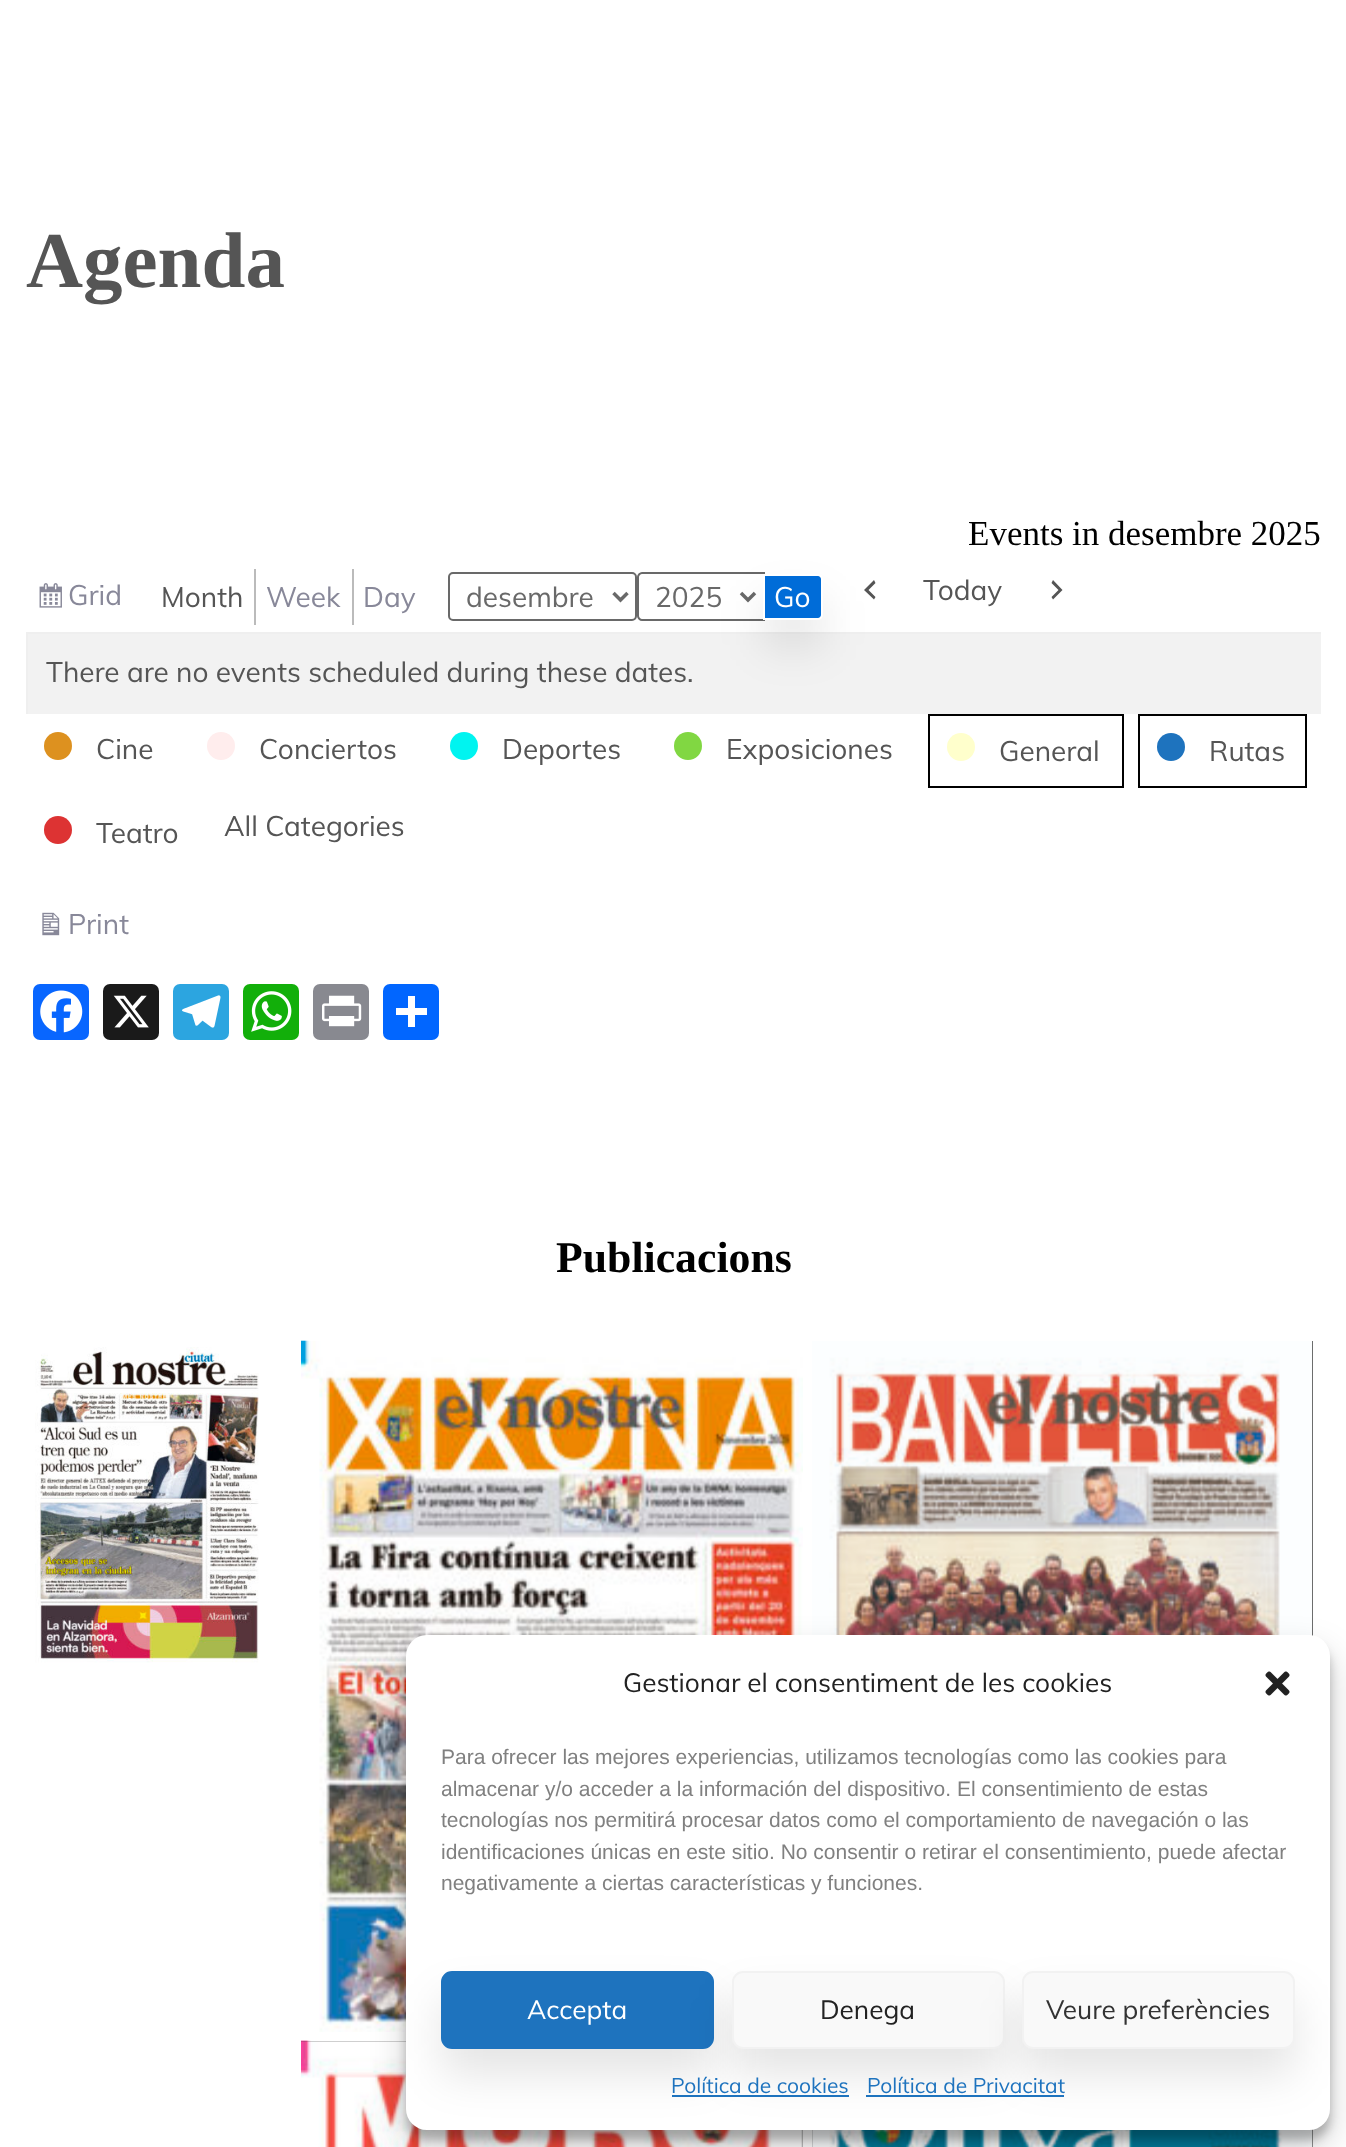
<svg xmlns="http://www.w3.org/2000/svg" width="1346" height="2147">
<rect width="100%" height="100%" fill="#fff"/>
<text x="26" y="287" style="font-family:Liberation Serif;font-size:79px;font-weight:bold;fill:#555">Agenda</text>
<text x="968" y="545" style="font-family:Liberation Serif;font-size:35px;fill:#000">Events in desembre 2025</text>
<image x="39" y="583" width="23" height="25" href="media/1.png"/>
<text x="68" y="605" style="font-family:Muli;font-size:28px;fill:#889">Grid</text>
<rect x="254" y="569" width="2" height="56" fill="#bbb"/>
<text x="161" y="607" style="font-family:Muli;font-size:28px;fill:#555">Month</text>
<rect x="352" y="569" width="2" height="56" fill="#bbb"/>
<text x="266" y="607" style="font-family:Muli;font-size:28px;fill:#889">Week</text>
<text x="363" y="607" style="font-family:Muli;font-size:28px;fill:#889">Day</text>
<rect x="449" y="573" width="187" height="47" rx="4" fill="none" stroke="#696969" stroke-width="2"/>
<path d="M613.5 593l7 7l7-7" fill="none" stroke="#696969" stroke-width="3.5"/>
<text x="466" y="607" style="font-family:Muli;font-size:28px;fill:#696969">desembre</text>
<path d="M642 573h122v47h-122c-2 0-4-2-4-4v-39c0-2 2-4 4-4z" fill="none" stroke="#696969" stroke-width="2"/>
<path d="M741 593l7 7l7-7" fill="none" stroke="#696969" stroke-width="3.5"/>
<text x="655" y="607" style="font-family:Muli;font-size:28px;fill:#696969">2025</text>
<rect x="26" y="632" width="1295" height="2" fill="#efefef"/>
<rect x="763" y="600" width="60" height="46" rx="5" fill="#0000001a" filter="blur(22px)"/>
<path d="M764 575h54c2 0 4 2 4 4v36c0 2-2 4-4 4h-54z" fill="#006cd8" stroke="#fff" stroke-width="2"/>
<text x="774" y="607" style="font-family:Muli;font-size:28px;fill:#fff">Go</text>
<path d="M875.5 583l-7 7l7 7l-1.5 2.5l-10-9.5l10-10z" fill="#555"/>
<text x="923" y="600" style="font-family:Muli;font-size:28px;fill:#555">Today</text>
<path d="M1051.5 597l7-7l-7-7l1.5-3l9.5 10l-9.5 9.5z" fill="#555"/>
<rect x="26" y="632" width="2" height="82" fill="#efefef"/>
<rect x="28" y="634" width="1293" height="80" fill="#0000000d"/>
<text x="46" y="682" style="font-family:Muli;font-size:28px;fill:#555">There are no events scheduled during these dates.</text>
<circle cx="58" cy="746" r="14" fill="#dd911f"/>
<text x="96" y="759" style="font-family:Muli;font-size:28px;fill:#555">Cine</text>
<circle cx="221" cy="746" r="14" fill="#ffeded"/>
<text x="259" y="759" style="font-family:Muli;font-size:28px;fill:#555">Conciertos</text>
<circle cx="464" cy="746" r="14" fill="#00f4f0"/>
<text x="502" y="759" style="font-family:Muli;font-size:28px;fill:#555">Deportes</text>
<circle cx="688" cy="746" r="14" fill="#81d742"/>
<text x="726" y="759" style="font-family:Muli;font-size:28px;fill:#555">Exposiciones</text>
<rect x="929" y="715" width="194" height="72" fill="none" stroke="#000" stroke-width="2"/>
<circle cx="961" cy="747" r="14" fill="#ffc"/>
<text x="999" y="761" style="font-family:Muli;font-size:28px;fill:#555">General</text>
<rect x="1139" y="715" width="167" height="72" fill="none" stroke="#000" stroke-width="2"/>
<circle cx="1171" cy="747" r="14" fill="#1e73be"/>
<text x="1209" y="761" style="font-family:Muli;font-size:28px;fill:#555">Rutas</text>
<circle cx="58" cy="830" r="14" fill="#d33"/>
<text x="96" y="843" style="font-family:Muli;font-size:28px;fill:#555">Teatro</text>
<text x="224" y="836" style="font-family:Muli;font-size:28px;fill:#555">All Categories</text>
<image x="42" y="912" width="18" height="24" href="media/2.png"/>
<text x="68" y="934" style="font-family:Muli;font-size:28px;fill:#889">Print</text>
<rect x="33" y="984" width="56" height="56" rx="7" fill="#0866ff"/>
<image x="40" y="990" width="43" height="43" href="media/3.png"/>
<rect x="103" y="984" width="56" height="56" rx="7" fill="#1a1a1a"/>
<image x="113" y="995" width="36" height="33" href="media/4.png"/>
<rect x="173" y="984" width="56" height="56" rx="7" fill="#2ca5e0"/>
<image x="182" y="995" width="39" height="33" href="media/5.png"/>
<rect x="243" y="984" width="56" height="56" rx="7" fill="#12af0a"/>
<image x="251" y="991" width="41" height="41" href="media/6.png"/>
<rect x="313" y="984" width="56" height="56" rx="7" fill="#888990"/>
<image x="322" y="995" width="40" height="32" href="media/7.png"/>
<rect x="383" y="984" width="56" height="56" rx="7" fill="#0166ff"/>
<rect x="408" y="996" width="7" height="31" fill="#fff"/>
<rect x="396" y="1008" width="31" height="7" fill="#fff"/>
<text x="556" y="1272" style="font-family:Liberation Serif;font-size:43.75px;font-weight:bold;fill:#000">Publicacions</text>
<image x="35" y="1347" width="224" height="316" href="media/8.png"/>
<image x="301" y="1340" width="502" height="692" href="media/9.png"/>
<rect x="1312" y="1341" width="1" height="295" fill="#3c3c3c"/>
<image x="812" y="1341" width="501" height="295" href="media/10.png"/>
<rect x="301" y="2041" width="502" height="106" fill="#3c3c3c"/>
<image x="301" y="2040" width="502" height="107" href="media/11.png"/>
<rect x="812" y="2129" width="501" height="18" fill="#3c3c3c"/>
<image x="812" y="2129" width="501" height="18" href="media/12.png"/>
<rect x="406" y="1645" width="924" height="495" rx="21" fill="#0000003b" filter="blur(5px)"/>
<rect x="406" y="1652" width="924" height="495" rx="21" fill="#00000030" filter="blur(17.5px)"/>
<rect x="406" y="1635" width="924" height="495" rx="21" fill="#fff"/>
<text x="623" y="1692" style="font-family:Muli;font-size:26.25px;fill:#222">Gestionar el consentiment de les cookies</text>
<image x="1265" y="1671" width="25" height="25" href="media/13.png"/>
<text x="441" y="1764" style="font-family:Liberation Sans;font-size:21px;fill:#808080">Para ofrecer las mejores experiencias, utilizamos tecnologías como las cookies para</text>
<text x="441" y="1796" style="font-family:Liberation Sans;font-size:21px;fill:#808080">almacenar y/o acceder a la información del dispositivo. El consentimiento de estas</text>
<text x="441" y="1827" style="font-family:Liberation Sans;font-size:21px;fill:#808080">tecnologías nos permitirá procesar datos como el comportamiento de navegación o las</text>
<text x="441" y="1859" style="font-family:Liberation Sans;font-size:21px;fill:#808080">identificaciones únicas en este sitio. No consentir o retirar el consentimiento, puede afectar</text>
<text x="441" y="1890" style="font-family:Liberation Sans;font-size:21px;fill:#808080">negativamente a ciertas características y funciones.</text>
<rect x="441" y="1997" width="273" height="79" rx="11" fill="#0000001a" filter="blur(22px)"/>
<rect x="442" y="1972" width="271" height="76" rx="10" fill="#1e73be" stroke="#1e73be" stroke-width="2"/>
<text x="527" y="2019" style="font-family:Muli;font-size:26.25px;fill:#fff">Accepta</text>
<rect x="732" y="1997" width="273" height="79" rx="11" fill="#0000001a" filter="blur(22px)"/>
<rect x="733" y="1972" width="271" height="76" rx="10" fill="#f9f9f9" stroke="#f2f2f2" stroke-width="2"/>
<text x="820" y="2019" style="font-family:Muli;font-size:26.25px;fill:#222">Denega</text>
<rect x="1022" y="1997" width="273" height="79" rx="11" fill="#0000001a" filter="blur(22px)"/>
<rect x="1023" y="1972" width="271" height="76" rx="10" fill="#f9f9f9" stroke="#f2f2f2" stroke-width="2"/>
<text x="1046" y="2019" style="font-family:Muli;font-size:26.25px;fill:#333">Veure preferències</text>
<text x="671" y="2093" style="font-family:Muli;font-size:21px;fill:#1e73be">Política de cookies</text>
<rect x="672" y="2095" width="177" height="2" fill="#1e73be"/>
<text x="867" y="2093" style="font-family:Muli;font-size:21px;fill:#1e73be">Política de Privacitat</text>
<rect x="866" y="2095" width="198" height="2" fill="#1e73be"/>
</svg>
